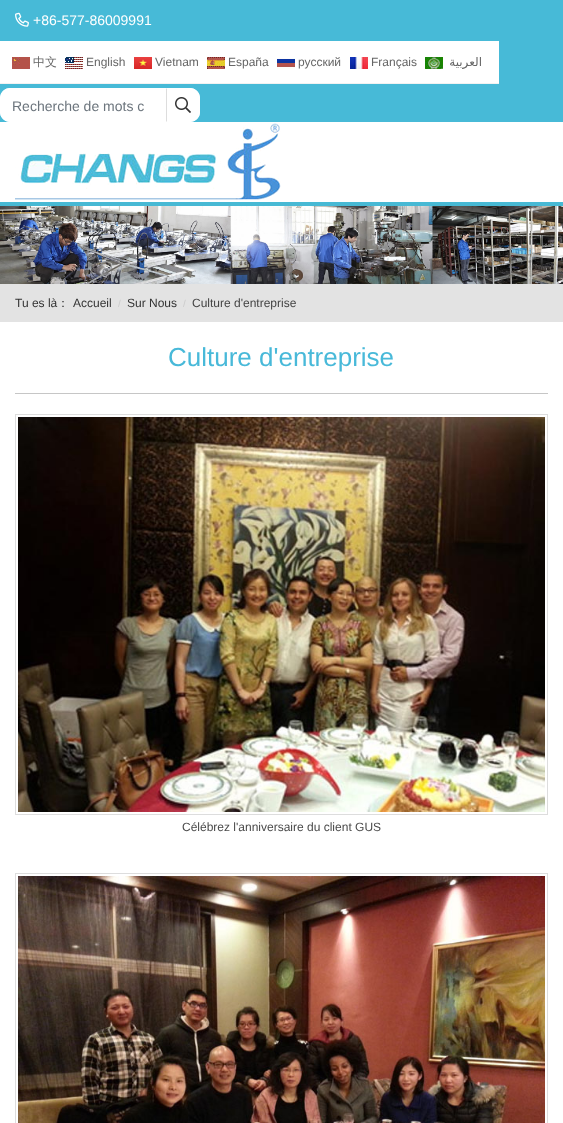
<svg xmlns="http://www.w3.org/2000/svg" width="563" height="1123">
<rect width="100%" height="100%" fill="#fff"/>
<rect width="563" height="122" fill="#47bad7"/>
<image x="15" y="12" width="14" height="15" href="media/1.png"/>
<text x="33" y="25" style="font-family:Liberation Sans;font-size:14px;fill:#fff">+86-577-86009991</text>
<rect y="41" width="499" height="42" fill="#fff"/>
<rect y="83" width="499" height="1" fill="#f2f2f2"/>
<image x="12" y="57" width="18" height="12" href="media/2.png"/>
<text x="33" y="66" style="font-family:WenQuanYi Zen Hei;font-size:12px;font-weight:500;fill:#666">中文</text>
<image x="65" y="57" width="18" height="12" href="media/3.png"/>
<text x="86" y="66" style="font-family:Liberation Sans;font-size:12px;fill:#666">English</text>
<image x="134" y="57" width="18" height="12" href="media/4.png"/>
<text x="155" y="66" style="font-family:Liberation Sans;font-size:12px;fill:#666">Vietnam</text>
<image x="207" y="57" width="18" height="12" href="media/5.png"/>
<text x="228" y="66" style="font-family:Liberation Sans;font-size:12px;fill:#666">España</text>
<image x="277" y="58" width="18" height="11" href="media/6.png"/>
<text x="298" y="66" style="font-family:Liberation Sans;font-size:12px;fill:#666">русский</text>
<image x="350" y="57" width="18" height="12" href="media/7.png"/>
<text x="371" y="66" style="font-family:Liberation Sans;font-size:12px;fill:#666">Français</text>
<image x="425" y="57" width="18" height="12" href="media/8.png"/>
<text x="482" y="66" style="font-family:DejaVu Sans;font-size:12px;direction:rtl;fill:#666">العربية</text>
<rect y="88" width="200" height="34" rx="10" fill="#fff"/>
<path d="M10 88h147v34h-147c-5.5 0-10-4.5-10-10v-14c0-5.5 4.5-10 10-10z" fill="#fff"/>
<text x="12" y="111" style="font-family:Liberation Sans;font-size:14px;fill:#6c757d">Recherche de mots c</text>
<path d="M166 88h24c5.5 0 10 4.5 10 10v14c0 5.5-4.5 10-10 10h-24z" fill="#fff"/>
<path d="M166 122v-34l1 1v32z" fill="#ddd"/>
<image x="175" y="97" width="16" height="16" href="media/9.png"/>
<rect y="202" width="563" height="4" fill="#47b9d4"/>
<image x="15" y="123" width="266" height="77" href="media/10.png"/>
<image x="0" y="206" width="563" height="78" href="media/11.png"/>
<rect y="284" width="563" height="38" fill="#e3e3e3"/>
<text x="15" y="307" style="font-family:Liberation Sans;font-size:12px;fill:#333">Tu es là</text>
<text x="57" y="307" style="font-family:WenQuanYi Zen Hei;font-size:12px;font-weight:500;fill:#333">：</text>
<text x="73" y="307" style="font-family:Liberation Sans;font-size:12px;fill:#333">Accueil</text>
<text x="118" y="307" style="font-family:Liberation Sans;font-size:10px;fill:#ccc">/</text>
<text x="127" y="307" style="font-family:Liberation Sans;font-size:12px;fill:#333">Sur Nous</text>
<text x="183" y="307" style="font-family:Liberation Sans;font-size:10px;fill:#ccc">/</text>
<text x="192" y="307" style="font-family:Liberation Sans;font-size:12px;fill:#444">Culture d'entreprise</text>
<rect x="15" y="393" width="533" height="1" fill="#c6c6c6"/>
<text x="168" y="366" style="font-family:Liberation Sans;font-size:26px;fill:#48b9d9">Culture d'entreprise</text>
<rect x="15.5" y="414.5" width="532" height="400" fill="none" stroke="#ddd"/>
<image x="18" y="417" width="527" height="395" href="media/12.png"/>
<text x="182" y="831" style="font-family:Liberation Sans;font-size:12px;fill:#4a4a4a">Célébrez l'anniversaire du client GUS</text>
<rect x="15.5" y="873.5" width="532" height="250" fill="none" stroke="#ddd"/>
<image x="18" y="876" width="527" height="247" href="media/13.png"/>
</svg>
